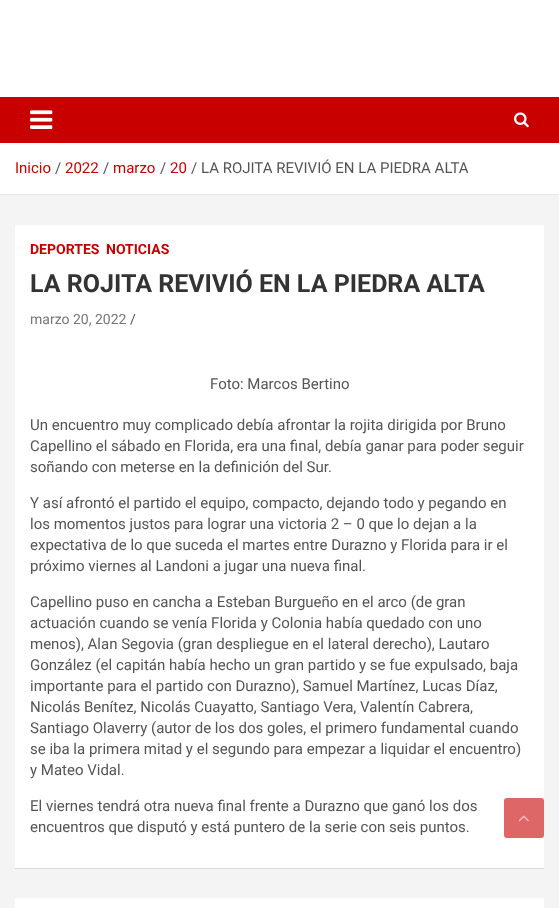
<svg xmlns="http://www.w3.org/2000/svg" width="559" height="908">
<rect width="100%" height="100%" fill="#f4f4f4"/>
<rect width="559" height="97" fill="#fff"/>
<rect y="97" width="559" height="46" fill="#c80000"/>
<image x="30" y="110" width="23" height="19" href="media/1.png"/>
<image x="514" y="112" width="15" height="16" href="media/2.png"/>
<rect y="143" width="559" height="51" fill="#fff"/>
<rect y="194" width="559" height="1" fill="#e6e6e6"/>
<text x="15" y="173" style="font-family:Roboto;font-size:15px;fill:#c80000">Inicio</text>
<text x="55" y="173" style="font-family:Roboto;font-size:15px;fill:#555">/</text>
<text x="65" y="173" style="font-family:Roboto;font-size:15px;fill:#c80000">2022</text>
<text x="103" y="173" style="font-family:Roboto;font-size:15px;fill:#555">/</text>
<text x="113" y="173" style="font-family:Roboto;font-size:15px;fill:#c80000">marzo</text>
<text x="160" y="173" style="font-family:Roboto;font-size:15px;fill:#555">/</text>
<text x="170" y="173" style="font-family:Roboto;font-size:15px;fill:#c80000">20</text>
<text x="191" y="173" style="font-family:Roboto;font-size:15px;fill:#555">/ LA ROJITA REVIVIÓ EN LA PIEDRA ALTA</text>
<rect x="15" y="226" width="529" height="643" fill="#0000001a" filter="blur(0.5px)"/>
<rect x="15" y="225" width="529" height="643" fill="#fff"/>
<text x="30" y="254" style="font-family:Roboto;font-size:14px;font-weight:bold;fill:#c80000">DEPORTES</text>
<text x="106" y="254" style="font-family:Roboto;font-size:14px;font-weight:bold;fill:#c80000">NOTICIAS</text>
<text x="30" y="292" style="font-family:Roboto;font-size:25px;font-weight:bold;fill:#333">LA ROJITA REVIVIÓ EN LA PIEDRA ALTA</text>
<text x="30" y="324" style="font-family:Roboto;font-size:14px;fill:#777">marzo 20, 2022</text>
<text x="130" y="324" style="font-family:Roboto;font-size:14px;fill:#555">/</text>
<text x="210" y="389" style="font-family:Roboto;font-size:15px;fill:#555">Foto: Marcos Bertino</text>
<text x="30" y="430" style="font-family:Roboto;font-size:15px;fill:#555">Un encuentro muy complicado debía afrontar la rojita dirigida por Bruno</text>
<text x="30" y="451" style="font-family:Roboto;font-size:15px;fill:#555">Capellino el sábado en Florida, era una final, debía ganar para poder seguir</text>
<text x="30" y="472" style="font-family:Roboto;font-size:15px;fill:#555">soñando con meterse en la definición del Sur.</text>
<text x="30" y="508" style="font-family:Roboto;font-size:15px;fill:#555">Y así afrontó el partido el equipo, compacto, dejando todo y pegando en</text>
<text x="30" y="529" style="font-family:Roboto;font-size:15px;fill:#555">los momentos justos para lograr una victoria 2 – 0 que lo dejan a la</text>
<text x="30" y="550" style="font-family:Roboto;font-size:15px;fill:#555">expectativa de lo que suceda el martes entre Durazno y Florida para ir el</text>
<text x="30" y="571" style="font-family:Roboto;font-size:15px;fill:#555">próximo viernes al Landoni a jugar una nueva final.</text>
<text x="30" y="607" style="font-family:Roboto;font-size:15px;fill:#555">Capellino puso en cancha a Esteban Burgueño en el arco (de gran</text>
<text x="30" y="628" style="font-family:Roboto;font-size:15px;fill:#555">actuación cuando se venía Florida y Colonia había quedado con uno</text>
<text x="30" y="649" style="font-family:Roboto;font-size:15px;fill:#555">menos), Alan Segovia (gran despliegue en el lateral derecho), Lautaro</text>
<text x="30" y="670" style="font-family:Roboto;font-size:15px;fill:#555">González (el capitán había hecho un gran partido y se fue expulsado, baja</text>
<text x="30" y="691" style="font-family:Roboto;font-size:15px;fill:#555">importante para el partido con Durazno), Samuel Martínez, Lucas Díaz,</text>
<text x="30" y="712" style="font-family:Roboto;font-size:15px;fill:#555">Nicolás Benítez, Nicolás Cuayatto, Santiago Vera, Valentín Cabrera,</text>
<text x="30" y="733" style="font-family:Roboto;font-size:15px;fill:#555">Santiago Olaverry (autor de los dos goles, el primero fundamental cuando</text>
<text x="30" y="754" style="font-family:Roboto;font-size:15px;fill:#555">se iba la primera mitad y el segundo para empezar a liquidar el encuentro)</text>
<text x="30" y="775" style="font-family:Roboto;font-size:15px;fill:#555">y Mateo Vidal.</text>
<text x="30" y="811" style="font-family:Roboto;font-size:15px;fill:#555">El viernes tendrá otra nueva final frente a Durazno que ganó los dos</text>
<text x="30" y="832" style="font-family:Roboto;font-size:15px;fill:#555">encuentros que disputó y está puntero de la serie con seis puntos.</text>
<rect x="15" y="898" width="529" height="10" fill="#fff"/>
<rect x="504" y="798" width="40" height="40" rx="3" fill="#de6666"/>
<image x="518" y="815" width="11" height="7" href="media/3.png"/>
</svg>
